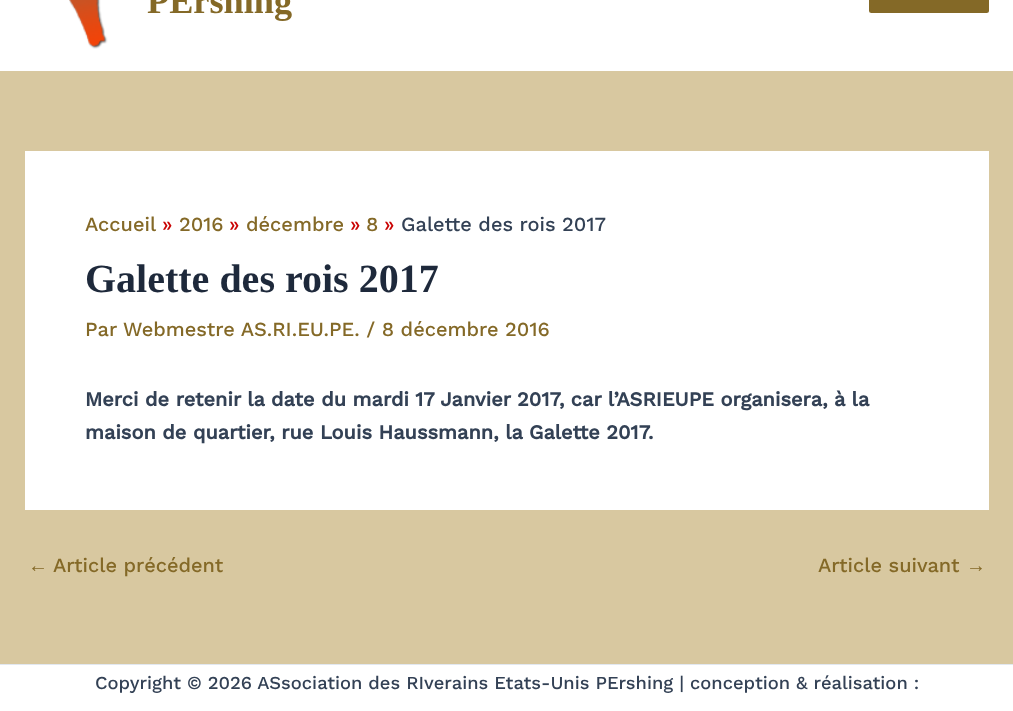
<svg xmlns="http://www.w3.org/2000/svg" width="1013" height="711">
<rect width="100%" height="100%" fill="#d8c8a0"/>
<rect width="1013" height="71" fill="#fff"/>
<image x="69" y="0" width="39" height="49" href="media/1.png"/>
<text x="147" y="13" style="font-family:Liberation Serif;font-size:36.25px;font-weight:bold;fill:#846927">PErshing</text>
<rect x="869" y="-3" width="120" height="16" rx="2.5" fill="#846927"/>
<rect x="25" y="151" width="964" height="359" fill="#fff"/>
<text x="85" y="231" style="font-family:Work Sans;font-size:20px;font-weight:500;fill:#846927">Accueil</text>
<text x="162" y="231" style="font-family:Work Sans;font-size:20px;font-weight:500;fill:#ca0303">»</text>
<text x="179" y="231" style="font-family:Work Sans;font-size:20px;font-weight:500;fill:#846927">2016</text>
<text x="229" y="231" style="font-family:Work Sans;font-size:20px;font-weight:500;fill:#ca0303">»</text>
<text x="246" y="231" style="font-family:Work Sans;font-size:20px;font-weight:500;fill:#846927">décembre</text>
<text x="350" y="231" style="font-family:Work Sans;font-size:20px;font-weight:500;fill:#ca0303">»</text>
<text x="366" y="231" style="font-family:Work Sans;font-size:20px;font-weight:500;fill:#846927">8</text>
<text x="384" y="231" style="font-family:Work Sans;font-size:20px;font-weight:500;fill:#ca0303">»</text>
<text x="401" y="231" style="font-family:Work Sans;font-size:20px;font-weight:500;fill:#334155">Galette des rois 2017</text>
<text x="85" y="292" style="font-family:Liberation Serif;font-size:40px;font-weight:bold;fill:#1e293b">Galette des rois 2017</text>
<text x="85" y="336" style="font-family:Work Sans;font-size:20px;font-weight:500;fill:#846927">Par</text>
<text x="123" y="336" style="font-family:Work Sans;font-size:20px;font-weight:500;fill:#846927">Webmestre AS.RI.EU.PE. / 8 décembre 2016</text>
<text x="85" y="406" style="font-family:Work Sans;font-size:20px;font-weight:bold;fill:#334155">Merci de retenir la date du mardi 17 Janvier 2017, car l’ASRIEUPE organisera, à la</text>
<text x="85" y="439" style="font-family:Work Sans;font-size:20px;font-weight:bold;fill:#334155">maison de quartier, rue Louis Haussmann, la Galette 2017.</text>
<text x="28" y="572" style="font-family:Liberation Sans;font-size:20px;fill:#846927">←</text>
<text x="53" y="572" style="font-family:Work Sans;font-size:20px;font-weight:500;fill:#846927">Article précédent</text>
<text x="818" y="572" style="font-family:Work Sans;font-size:20px;font-weight:500;fill:#846927">Article suivant</text>
<text x="966" y="572" style="font-family:Liberation Sans;font-size:20px;fill:#846927">→</text>
<rect y="665" width="1013" height="46" fill="#fff"/>
<rect y="664" width="1013" height="1" fill="#e2e8f0"/>
<text x="95" y="689" style="font-family:Work Sans;font-size:18.35px;font-weight:500;fill:#334155">Copyright © 2026 ASsociation des RIverains Etats-Unis PErshing | conception &amp; réalisation :</text>
</svg>
